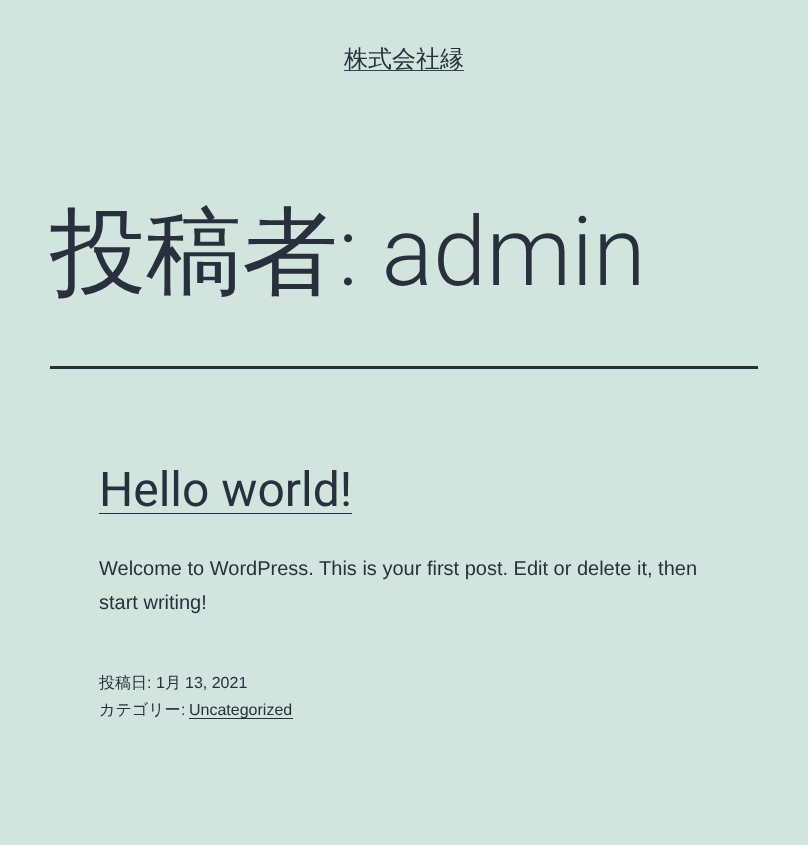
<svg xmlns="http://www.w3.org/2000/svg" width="808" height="845">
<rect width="100%" height="100%" fill="#d1e4dd"/>
<rect x="344" y="70" width="120" height="1" fill="#39414d"/>
<text x="344" y="67" style="font-family:WenQuanYi Zen Hei;font-size:24px;font-weight:500;fill:#28303d">株式会社縁</text>
<rect x="50" y="366" width="708" height="3" fill="#28303d"/>
<text x="50" y="285" style="font-family:WenQuanYi Zen Hei;font-size:96px;font-weight:500;fill:#28303d">投稿者</text>
<text x="338" y="285" style="font-family:Roboto;font-size:96px;font-weight:300;fill:#28303d">: admin</text>
<text x="99" y="506" style="font-family:Roboto;font-size:48px;fill:#28303d">Hello world!</text>
<rect x="99" y="513" width="253" height="1" fill="#28303d"/>
<text x="99" y="575" style="font-family:Liberation Sans;font-size:20px;fill:#28303d">Welcome to WordPress. This is your first post. Edit or delete it, then</text>
<text x="99" y="609" style="font-family:Liberation Sans;font-size:20px;fill:#28303d">start writing!</text>
<text x="99" y="688" style="font-family:WenQuanYi Zen Hei;font-size:16px;font-weight:500;fill:#28303d">投稿日</text>
<text x="147" y="688" style="font-family:Liberation Sans;font-size:16px;fill:#28303d">: 1</text>
<text x="165" y="688" style="font-family:WenQuanYi Zen Hei;font-size:16px;font-weight:500;fill:#28303d">月</text>
<text x="185" y="688" style="font-family:Liberation Sans;font-size:16px;fill:#28303d">13, 2021</text>
<text x="99" y="715" style="font-family:WenQuanYi Zen Hei;font-size:16px;font-weight:500;fill:#28303d">カテゴリー</text>
<text x="181" y="715" style="font-family:Liberation Sans;font-size:16px;fill:#28303d">:</text>
<rect x="189" y="718" width="104" height="1" fill="#28303d"/>
<text x="189" y="715" style="font-family:Liberation Sans;font-size:16px;fill:#28303d">Uncategorized</text>
</svg>
